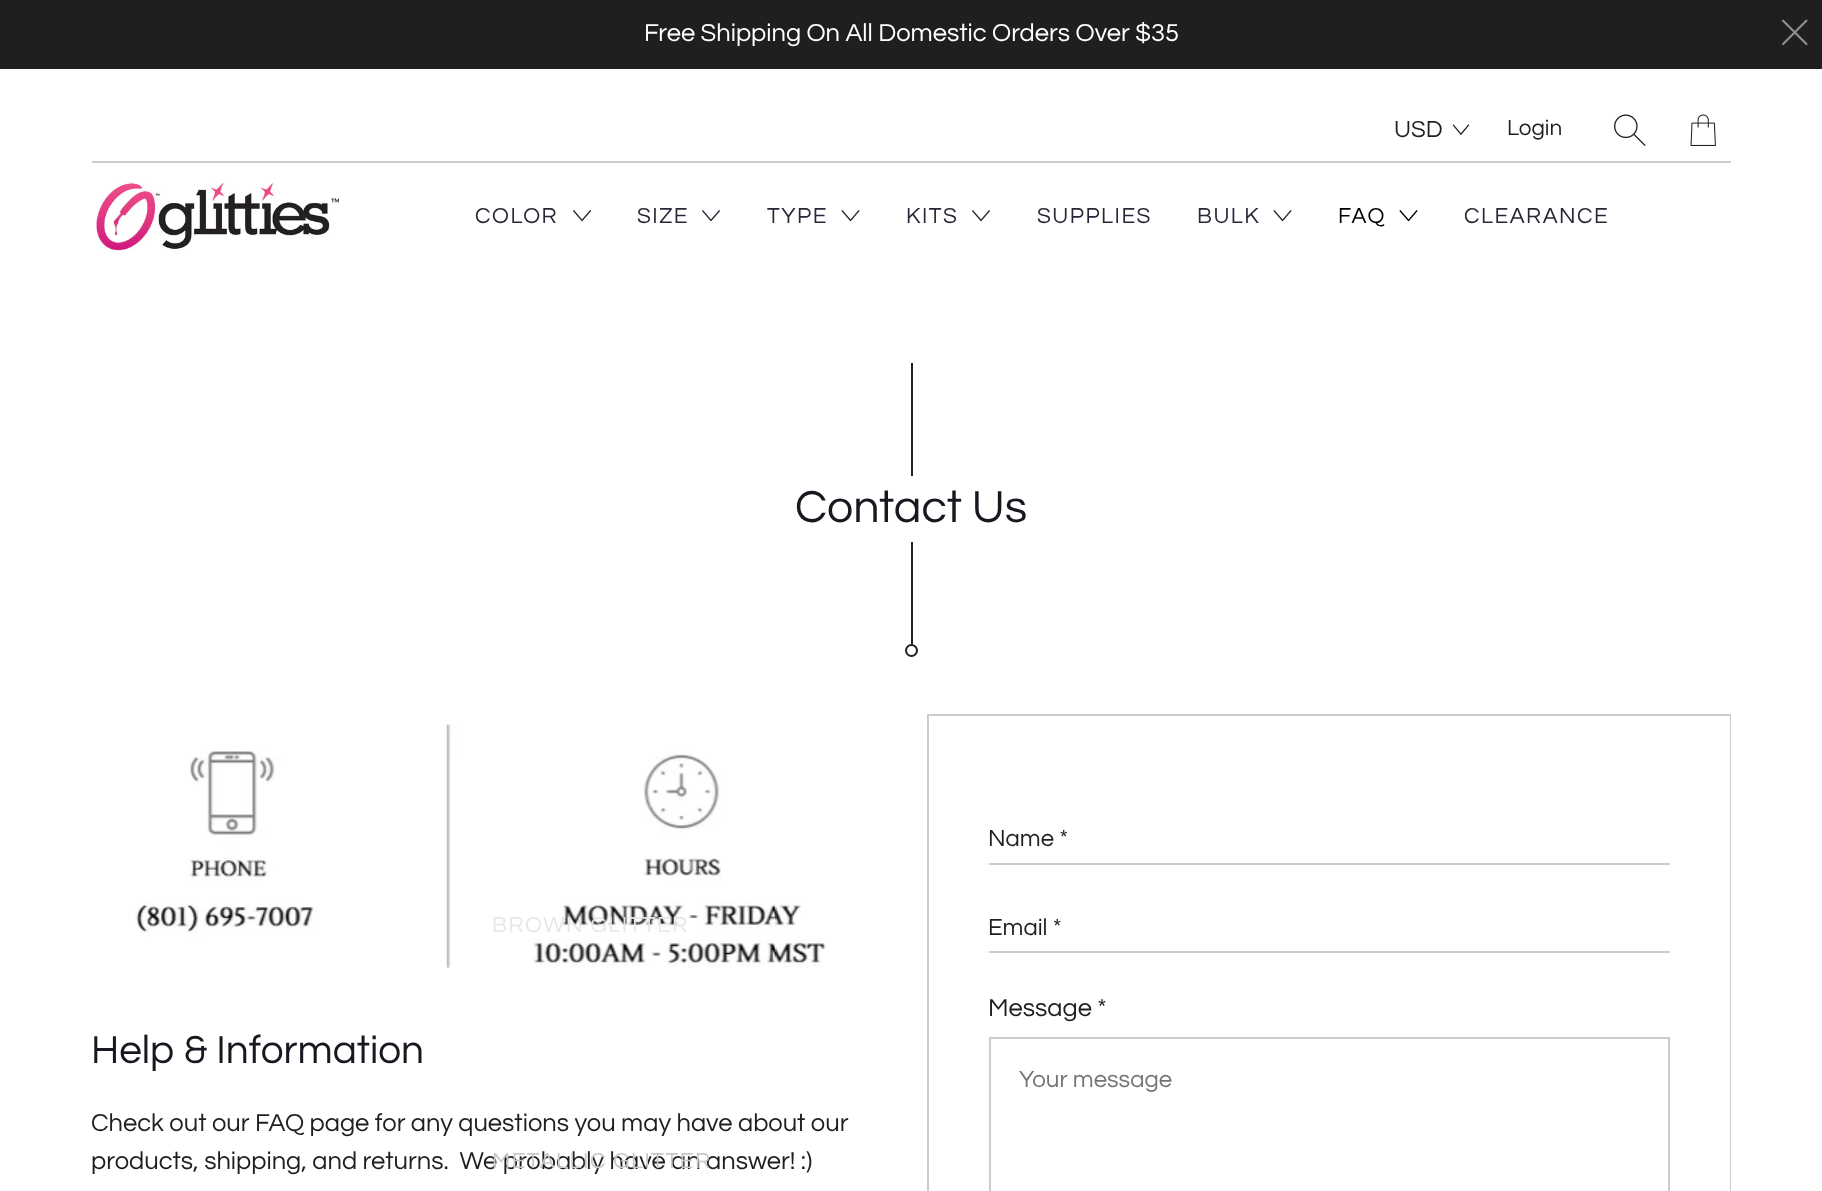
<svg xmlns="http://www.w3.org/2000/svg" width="1822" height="1191">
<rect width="100%" height="100%" fill="#fff"/>
<rect width="1822" height="69" fill="#1f1f21"/>
<text x="644" y="41" style="font-family:Questrial;font-size:25.5px;fill:#fff">Free Shipping On All Domestic Orders Over $35</text>
<image x="1782" y="19" width="26" height="27" href="media/1.png"/>
<rect x="92" y="161" width="1639" height="2" fill="#ccc"/>
<image x="1452" y="124" width="18" height="11" href="media/2.png"/>
<text x="1394" y="137" style="font-family:Questrial;font-size:24px;fill:#1f1f21">USD</text>
<text x="1507" y="135" style="font-family:Questrial;font-size:22.5px;fill:#1f1f21">Login</text>
<image x="1614" y="114" width="32" height="32" href="media/3.png"/>
<image x="1690" y="114" width="26" height="32" href="media/4.png"/>
<image x="96" y="182" width="243" height="69" href="media/5.png"/>
<text x="475" y="223" style="font-family:Questrial;font-size:22.5px;letter-spacing:1.5px;fill:#272737">COLOR</text>
<image x="573" y="210" width="18" height="12" href="media/6.png"/>
<image x="135" y="724" width="691" height="244" href="media/9.png"/>
<text x="492" y="932" style="font-family:Questrial;font-size:22.5px;letter-spacing:1.5px;fill:#e7e7e7">BROWN GLITTER</text>
<text x="91" y="1169" style="font-family:Questrial;font-size:25.5px;fill:#1f1f21" xml:space="preserve">products, shipping, and returns.  We probably have an answer! :)</text>
<text x="492" y="1168" style="font-family:Questrial;font-size:22.5px;letter-spacing:1.5px;fill:#c8c8c8">METALLIC GLITTER</text>
<text x="637" y="223" style="font-family:Questrial;font-size:22.5px;letter-spacing:1.5px;fill:#272737">SIZE</text>
<image x="702" y="210" width="18" height="12" href="media/6.png"/>
<text x="767" y="223" style="font-family:Questrial;font-size:22.5px;letter-spacing:1.5px;fill:#272737">TYPE</text>
<image x="841" y="210" width="19" height="12" href="media/7.png"/>
<text x="906" y="223" style="font-family:Questrial;font-size:22.5px;letter-spacing:1.5px;fill:#272737">KITS</text>
<image x="972" y="210" width="18" height="12" href="media/6.png"/>
<text x="1037" y="223" style="font-family:Questrial;font-size:22.5px;letter-spacing:1.5px;fill:#272737">SUPPLIES</text>
<text x="1197" y="223" style="font-family:Questrial;font-size:22.5px;letter-spacing:1.5px;fill:#272737">BULK</text>
<image x="1273" y="210" width="19" height="12" href="media/7.png"/>
<text x="1338" y="223" style="font-family:Questrial;font-size:22.5px;letter-spacing:1.5px;fill:#000">FAQ</text>
<image x="1399" y="210" width="19" height="12" href="media/8.png"/>
<text x="1464" y="223" style="font-family:Questrial;font-size:22.5px;letter-spacing:1.5px;fill:#272737">CLEARANCE</text>
<rect x="911" y="363" width="2" height="113" fill="#1f1f21"/>
<text x="795" y="522" style="font-family:Questrial;font-size:46.5px;fill:#181821">Contact Us</text>
<rect x="911" y="542" width="2" height="102" fill="#1f1f21"/>
<circle cx="911.5" cy="650.5" r="5.5" fill="none" stroke="#1f1f21" stroke-width="2"/>
<text x="91" y="1063" style="font-family:Questrial;font-size:40.5px;fill:#181821">Help &amp; Information</text>
<text x="91" y="1131" style="font-family:Questrial;font-size:25.5px;fill:#1f1f21">Check out our FAQ page for any questions you may have about our</text>
<rect x="928" y="715" width="802" height="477" fill="none" stroke="#ccc" stroke-width="2"/>
<rect x="1729" y="716" width="1" height="475" fill="#fff"/>
<text x="988" y="846" style="font-family:Questrial;font-size:24px;fill:#1f1f21">Name *</text>
<rect x="989" y="863" width="681" height="2" fill="#ccc"/>
<text x="988" y="935" style="font-family:Questrial;font-size:24px;fill:#1f1f21">Email *</text>
<rect x="989" y="951" width="681" height="2" fill="#ccc"/>
<text x="988" y="1016" style="font-family:Questrial;font-size:25.5px;fill:#1f1f21">Message *</text>
<rect x="990" y="1038" width="679" height="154" fill="none" stroke="#ccc" stroke-width="2"/>
<text x="1019" y="1087" style="font-family:Questrial;font-size:24px;fill:#757575">Your message</text>
</svg>
